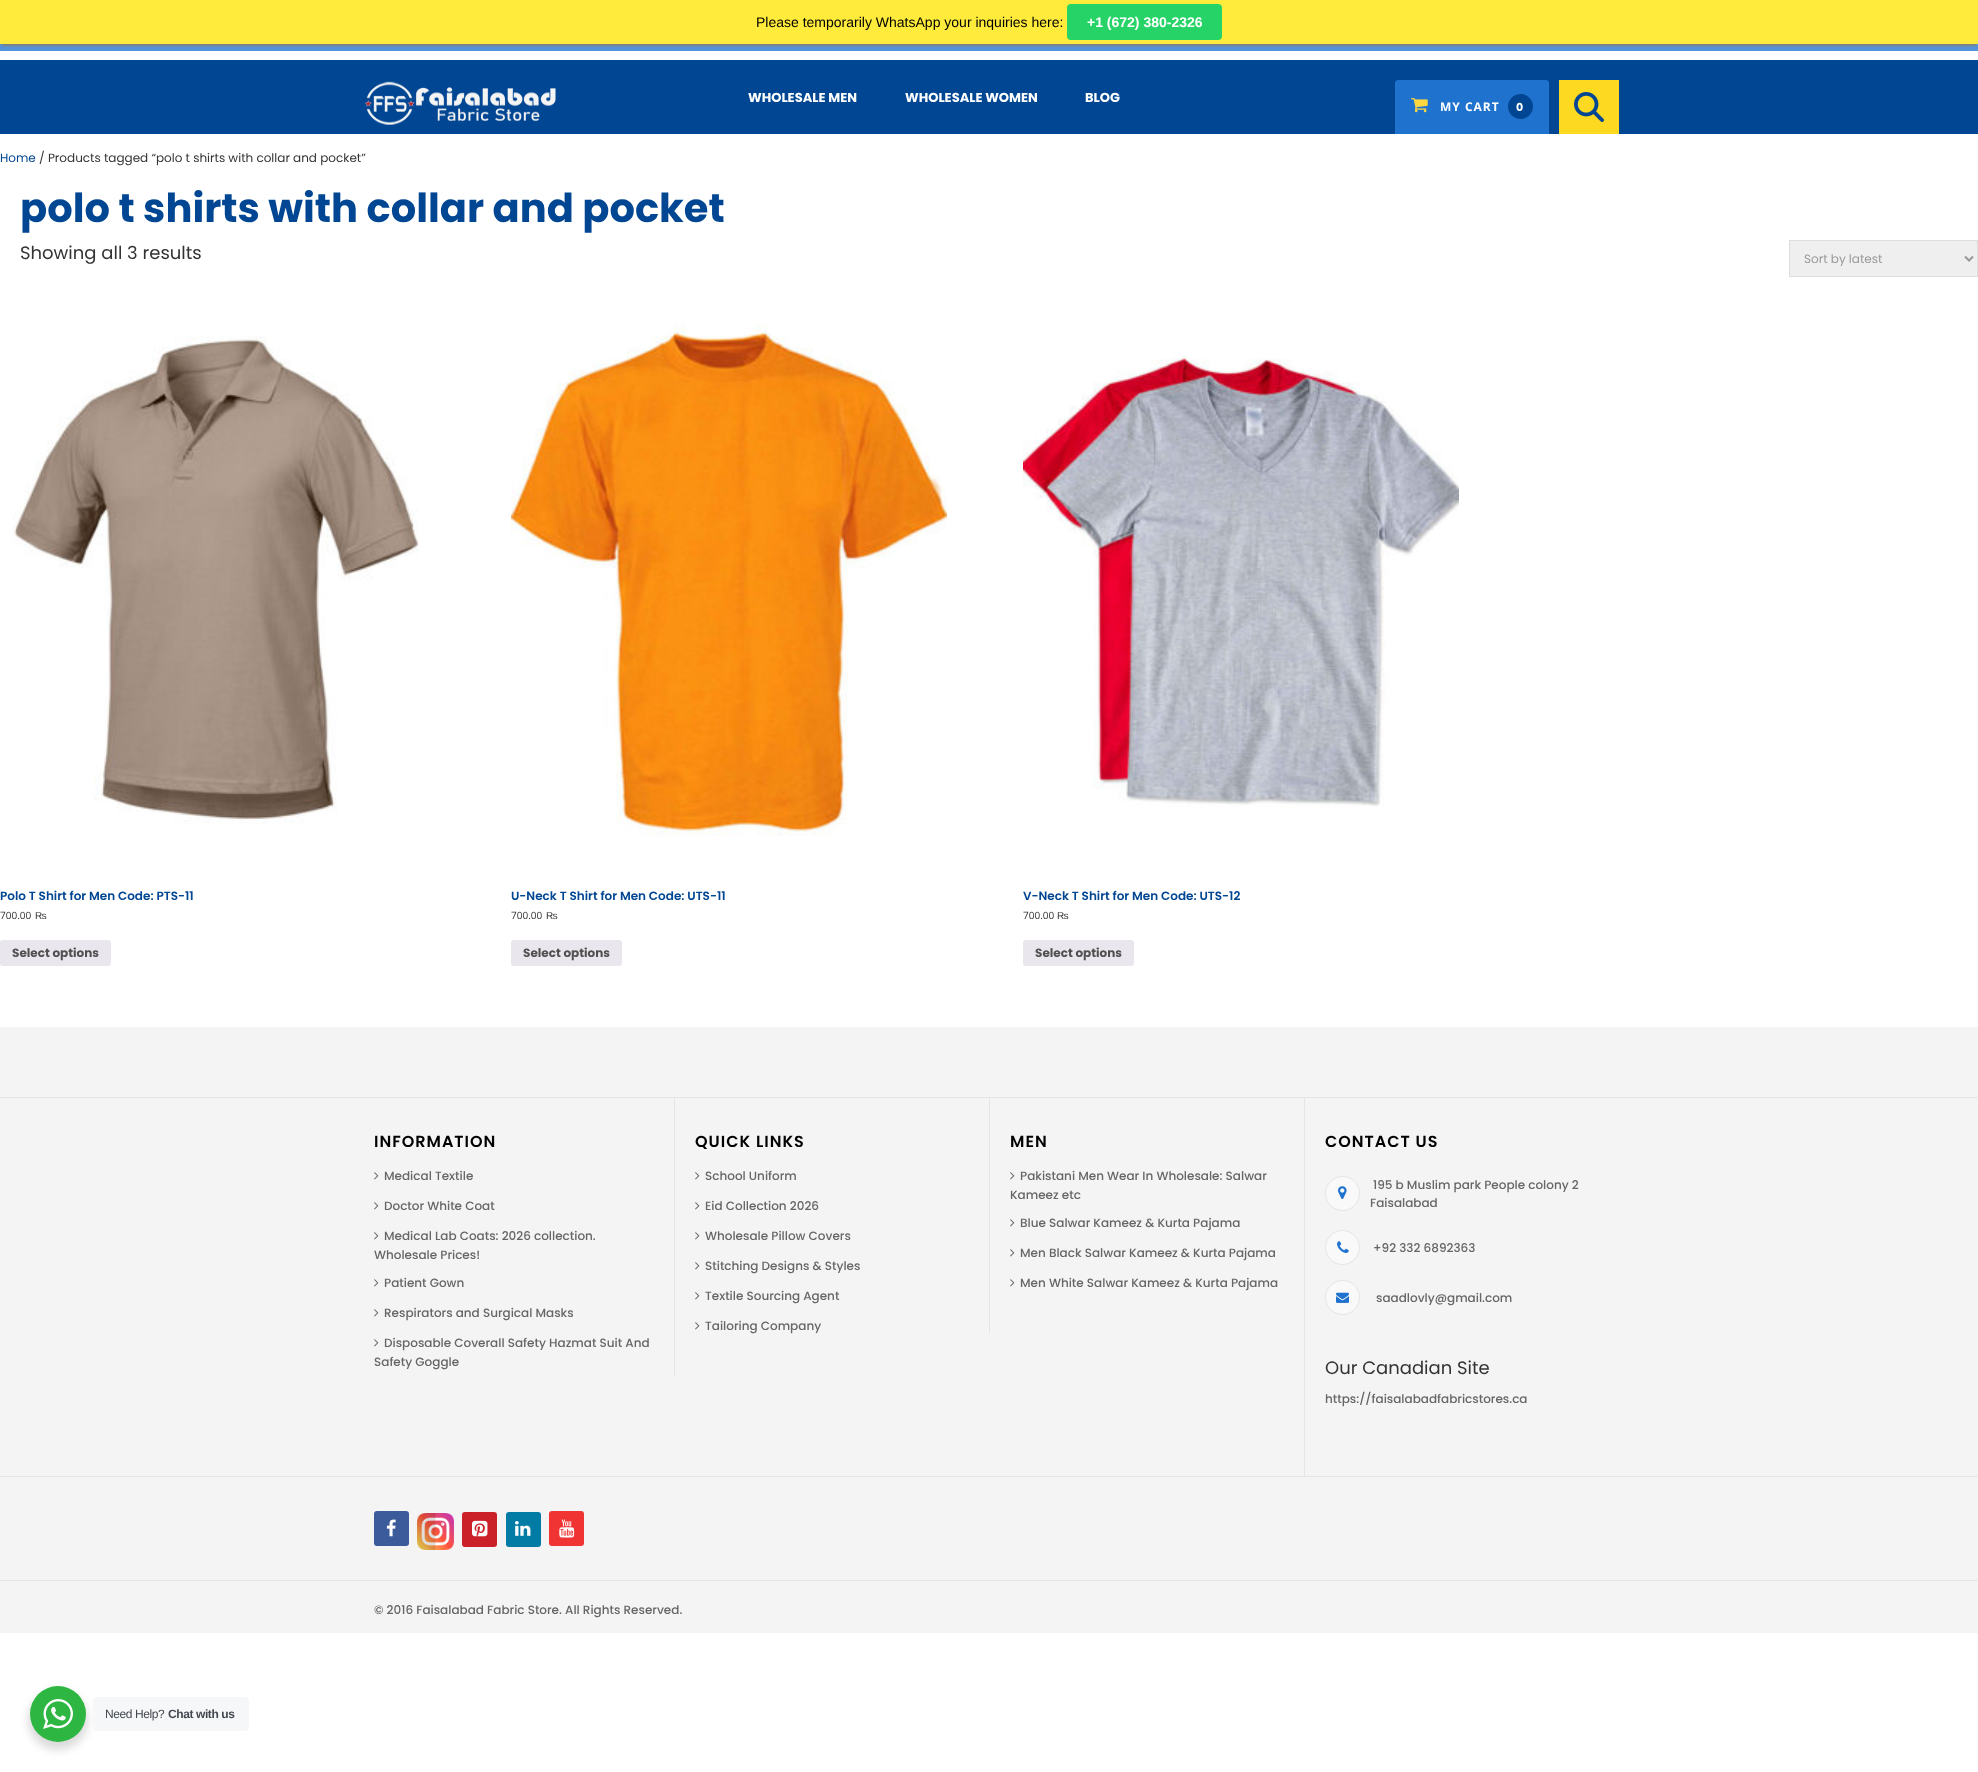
<svg xmlns="http://www.w3.org/2000/svg" width="1978" height="1772">
<rect width="100%" height="100%" fill="#fff"/>
<rect y="44" width="1978" height="7" fill="#5493d9"/>
<rect x="2" y="6" width="1974" height="40" fill="#808080" filter="blur(1px)"/>
<rect width="1978" height="44" fill="#ffeb3b"/>
<text x="756" y="27" style="font-family:Liberation Sans;font-size:14px;fill:#000">Please temporarily WhatsApp your inquiries here:</text>
<rect x="1067" y="4" width="155" height="36" rx="4" fill="#25d366"/>
<text x="1087" y="27" style="font-family:Liberation Sans;font-size:14px;font-weight:bold;fill:#fff">+1 (672) 380-2326</text>
<rect y="60" width="1978" height="74" fill="#014693"/>
<image x="365" y="81" width="191" height="44" href="media/1.png"/>
<text x="748" y="102" style="font-family:Poppins;font-size:13px;font-weight:bold;fill:#fff">WHOLESALE MEN</text>
<text x="905" y="102" style="font-family:Poppins;font-size:13px;font-weight:bold;fill:#fff">WHOLESALE WOMEN</text>
<text x="1085" y="102" style="font-family:Poppins;font-size:13px;font-weight:bold;fill:#fff">BLOG</text>
<path d="M1398 80h148c1.5 0 3 1.5 3 3v51h-154v-51c0-1.5 1.5-3 3-3z" fill="#1f72ce"/>
<image x="1411" y="98" width="17" height="15" href="media/2.png"/>
<text x="1440" y="111" style="font-family:Open Sans;font-size:12px;font-weight:bold;letter-spacing:1px;fill:#fff">MY CART</text>
<circle cx="1520.5" cy="106.5" r="12.5" fill="#014693"/>
<text x="1516" y="111" style="font-family:Poppins;font-size:11px;font-weight:bold;letter-spacing:1px;fill:#fff">0</text>
<rect x="1559" y="80" width="60" height="54" fill="#fdd922"/>
<image x="1574" y="92" width="30" height="30" href="media/3.png"/>
<text x="0" y="162" style="font-family:Poppins;font-size:12px;fill:#014693">Home</text>
<text x="39" y="162" style="font-family:Poppins;font-size:12px;fill:#333">/ Products tagged “polo t shirts with collar and pocket”</text>
<text x="20" y="222" style="font-family:Poppins;font-size:40px;font-weight:bold;fill:#014693">polo t shirts with collar and pocket</text>
<text x="20" y="259" style="font-family:Poppins;font-size:18px;fill:#333">Showing all 3 results</text>
<rect x="1789.5" y="240.5" width="188" height="36" fill="#efefef" stroke="#ddd"/>
<path d="M1965 256.5l4 4l4-4" fill="none" stroke="#999" stroke-width="2"/>
<text x="1804" y="263" style="font-family:Poppins;font-size:12px;fill:#999">Sort by latest</text>
<image x="12" y="335" width="407" height="489" href="media/4.png"/>
<text x="0" y="900" style="font-family:Poppins;font-size:12px;font-weight:600;fill:#014693">Polo T Shirt for Men Code: PTS-11</text>
<text x="0" y="919" style="font-family:Open Sans;font-size:10px;fill:#333">700.00</text>
<text x="35" y="919" style="font-family:Liberation Sans;font-size:10px;fill:#333">₨</text>
<rect y="940" width="111" height="26" rx="3" fill="#e9e6ed"/>
<text x="12" y="957" style="font-family:Poppins;font-size:12px;font-weight:bold;fill:#515151">Select options</text>
<image x="511" y="324" width="436" height="512" href="media/5.png"/>
<text x="511" y="900" style="font-family:Poppins;font-size:12px;font-weight:600;fill:#014693">U-Neck T Shirt for Men Code: UTS-11</text>
<text x="511" y="919" style="font-family:Open Sans;font-size:10px;fill:#333">700.00</text>
<text x="546" y="919" style="font-family:Liberation Sans;font-size:10px;fill:#333">₨</text>
<rect x="511" y="940" width="111" height="26" rx="3" fill="#e9e6ed"/>
<text x="523" y="957" style="font-family:Poppins;font-size:12px;font-weight:bold;fill:#515151">Select options</text>
<image x="1023" y="356" width="436" height="451" href="media/6.png"/>
<text x="1023" y="900" style="font-family:Poppins;font-size:12px;font-weight:600;fill:#014693">V-Neck T Shirt for Men Code: UTS-12</text>
<text x="1023" y="919" style="font-family:Open Sans;font-size:10px;fill:#333">700.00</text>
<text x="1057" y="919" style="font-family:Liberation Sans;font-size:10px;fill:#333">₨</text>
<rect x="1023" y="940" width="111" height="26" rx="3" fill="#e9e6ed"/>
<text x="1035" y="957" style="font-family:Poppins;font-size:12px;font-weight:bold;fill:#515151">Select options</text>
<rect y="1027" width="1978" height="606" fill="#f4f4f4"/>
<rect y="1097" width="1978" height="1" fill="#e5e5e5"/>
<text x="374" y="1147" style="font-family:Poppins;font-size:16px;font-weight:600;letter-spacing:1px;fill:#000">INFORMATION</text>
<image x="374" y="1172" width="5" height="8" href="media/7.png"/>
<text x="384" y="1180" style="font-family:Poppins;font-size:12px;font-weight:500;fill:#666">Medical Textile</text>
<image x="374" y="1202" width="5" height="8" href="media/7.png"/>
<text x="384" y="1210" style="font-family:Poppins;font-size:12px;font-weight:500;fill:#666">Doctor White Coat</text>
<image x="374" y="1232" width="5" height="8" href="media/7.png"/>
<text x="384" y="1240" style="font-family:Poppins;font-size:12px;font-weight:500;fill:#666">Medical Lab Coats: 2026 collection.</text>
<text x="374" y="1259" style="font-family:Poppins;font-size:12px;font-weight:500;fill:#666">Wholesale Prices!</text>
<image x="374" y="1279" width="5" height="8" href="media/7.png"/>
<text x="384" y="1287" style="font-family:Poppins;font-size:12px;font-weight:500;fill:#666">Patient Gown</text>
<image x="374" y="1309" width="5" height="8" href="media/7.png"/>
<text x="384" y="1317" style="font-family:Poppins;font-size:12px;font-weight:500;fill:#666">Respirators and Surgical Masks</text>
<image x="374" y="1339" width="5" height="8" href="media/7.png"/>
<text x="384" y="1347" style="font-family:Poppins;font-size:12px;font-weight:500;fill:#666">Disposable Coverall Safety Hazmat Suit And</text>
<text x="374" y="1366" style="font-family:Poppins;font-size:12px;font-weight:500;fill:#666">Safety Goggle</text>
<rect x="674" y="1098" width="1" height="278" fill="#e5e5e5"/>
<text x="695" y="1147" style="font-family:Poppins;font-size:16px;font-weight:600;letter-spacing:1px;fill:#000">QUICK LINKS</text>
<image x="695" y="1172" width="5" height="8" href="media/7.png"/>
<text x="705" y="1180" style="font-family:Poppins;font-size:12px;font-weight:500;fill:#666">School Uniform</text>
<image x="695" y="1202" width="5" height="8" href="media/7.png"/>
<text x="705" y="1210" style="font-family:Poppins;font-size:12px;font-weight:500;fill:#666">Eid Collection 2026</text>
<image x="695" y="1232" width="5" height="8" href="media/7.png"/>
<text x="705" y="1240" style="font-family:Poppins;font-size:12px;font-weight:500;fill:#666">Wholesale Pillow Covers</text>
<image x="695" y="1262" width="5" height="8" href="media/7.png"/>
<text x="705" y="1270" style="font-family:Poppins;font-size:12px;font-weight:500;fill:#666">Stitching Designs &amp; Styles</text>
<image x="695" y="1292" width="5" height="8" href="media/7.png"/>
<text x="705" y="1300" style="font-family:Poppins;font-size:12px;font-weight:500;fill:#666">Textile Sourcing Agent</text>
<image x="695" y="1322" width="5" height="8" href="media/7.png"/>
<text x="705" y="1330" style="font-family:Poppins;font-size:12px;font-weight:500;fill:#666">Tailoring Company</text>
<rect x="989" y="1098" width="1" height="235" fill="#e5e5e5"/>
<text x="1010" y="1147" style="font-family:Poppins;font-size:16px;font-weight:600;letter-spacing:1px;fill:#000">MEN</text>
<image x="1010" y="1172" width="5" height="8" href="media/7.png"/>
<text x="1020" y="1180" style="font-family:Poppins;font-size:12px;font-weight:500;fill:#666">Pakistani Men Wear In Wholesale: Salwar</text>
<text x="1010" y="1199" style="font-family:Poppins;font-size:12px;font-weight:500;fill:#666">Kameez etc</text>
<image x="1010" y="1219" width="5" height="8" href="media/7.png"/>
<text x="1020" y="1227" style="font-family:Poppins;font-size:12px;font-weight:500;fill:#666">Blue Salwar Kameez &amp; Kurta Pajama</text>
<image x="1010" y="1249" width="5" height="8" href="media/7.png"/>
<text x="1020" y="1257" style="font-family:Poppins;font-size:12px;font-weight:500;fill:#666">Men Black Salwar Kameez &amp; Kurta Pajama</text>
<image x="1010" y="1279" width="5" height="8" href="media/7.png"/>
<text x="1020" y="1287" style="font-family:Poppins;font-size:12px;font-weight:500;fill:#666">Men White Salwar Kameez &amp; Kurta Pajama</text>
<rect x="1304" y="1098" width="1" height="378" fill="#e5e5e5"/>
<text x="1325" y="1147" style="font-family:Poppins;font-size:16px;font-weight:600;letter-spacing:1px;fill:#000">CONTACT US</text>
<circle cx="1342.5" cy="1193.5" r="17" fill="#f9f9f9" stroke="#e5e5e5"/>
<image x="1338" y="1186" width="9" height="13" href="media/8.png"/>
<text x="1373" y="1189" style="font-family:Poppins;font-size:12px;font-weight:500;fill:#666">195 b Muslim park People colony 2</text>
<text x="1370" y="1207" style="font-family:Poppins;font-size:12px;font-weight:500;fill:#666">Faisalabad</text>
<circle cx="1342.5" cy="1247.5" r="17" fill="#f9f9f9" stroke="#e5e5e5"/>
<image x="1337" y="1241" width="12" height="12" href="media/9.png"/>
<text x="1373" y="1252" style="font-family:Poppins;font-size:12px;font-weight:500;fill:#666">+92 332 6892363</text>
<circle cx="1342.5" cy="1297.5" r="17" fill="#f9f9f9" stroke="#e5e5e5"/>
<image x="1336" y="1292" width="13" height="11" href="media/10.png"/>
<text x="1376" y="1302" style="font-family:Poppins;font-size:12px;font-weight:500;fill:#666">saadlovly@gmail.com</text>
<text x="1325" y="1374" style="font-family:Poppins;font-size:18px;fill:#333">Our Canadian Site</text>
<text x="1325" y="1403" style="font-family:Poppins;font-size:12px;font-weight:500;fill:#666">https://faisalabadfabricstores.ca</text>
<rect y="1476" width="1978" height="1" fill="#e5e5e5"/>
<rect x="374" y="1511" width="35" height="35" rx="3" fill="#3c5b9b"/>
<image x="386" y="1519" width="10" height="18" href="media/11.png"/>
<image x="417" y="1513" width="37" height="37" href="media/12.png"/>
<rect x="462" y="1512" width="35" height="35" rx="3" fill="#cb2027"/>
<image x="472" y="1520" width="16" height="17" href="media/13.png"/>
<rect x="506" y="1512" width="35" height="35" rx="3" fill="#027ba5"/>
<image x="515" y="1521" width="16" height="15" href="media/14.png"/>
<rect x="549" y="1511" width="35" height="35" rx="3" fill="#f03434"/>
<image x="559" y="1519" width="16" height="19" href="media/15.png"/>
<rect y="1580" width="1978" height="1" fill="#e5e5e5"/>
<text x="374" y="1614" style="font-family:Poppins;font-size:12px;font-weight:500;fill:#666">© 2016 Faisalabad Fabric Store. All Rights Reserved.</text>
<rect x="28" y="1690" width="60" height="60" rx="30" fill="#00000024" filter="blur(4px)"/>
<circle cx="58" cy="1714" r="28" fill="#2db742"/>
<image x="43" y="1699" width="30" height="30" href="media/16.png"/>
<rect x="93" y="1697" width="156" height="34" rx="4" fill="#f5f7f9"/>
<text x="105" y="1718" style="font-family:Liberation Sans;font-size:12px;letter-spacing:-0.4px;fill:#43474e">Need Help?</text>
<text x="168" y="1718" style="font-family:Liberation Sans;font-size:12px;font-weight:bold;letter-spacing:-0.4px;fill:#43474e">Chat with us</text>
</svg>
